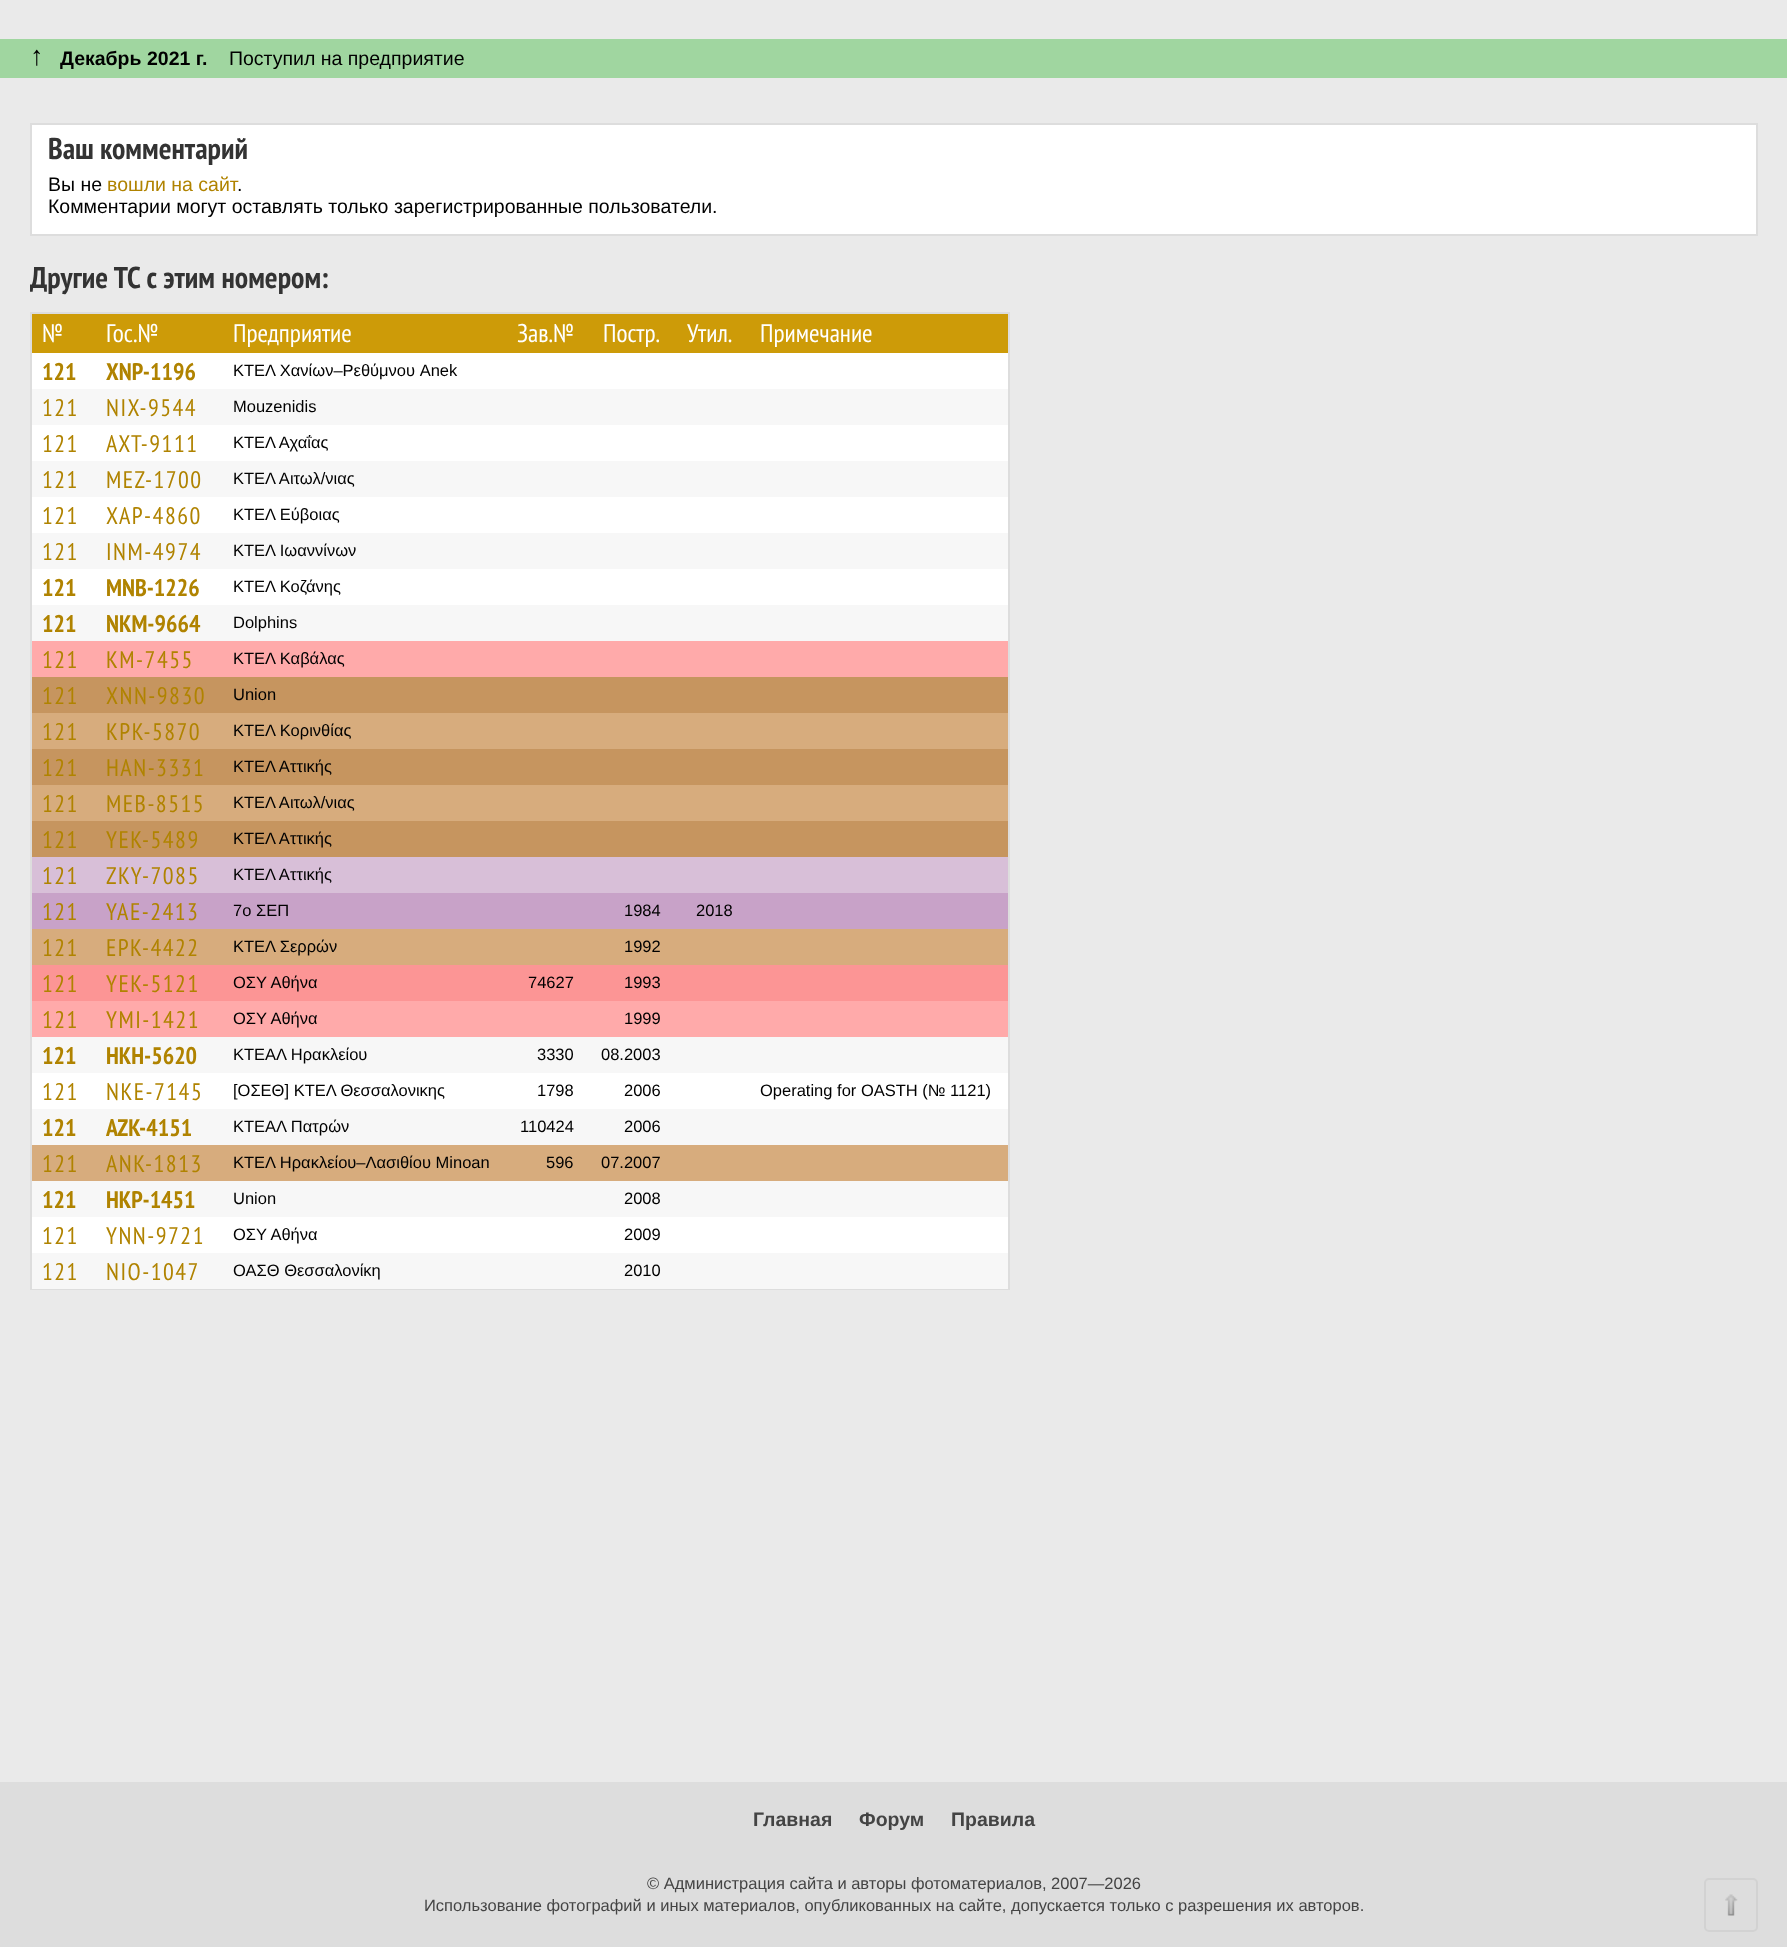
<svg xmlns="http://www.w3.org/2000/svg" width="1787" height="1947">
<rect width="100%" height="100%" fill="#ddd"/>
<rect width="1787" height="1782" fill="#eaeaea"/>
<rect y="39" width="1787" height="39" fill="#a0d6a0"/>
<text x="30" y="65" style="font-family:Liberation Sans;font-size:27px;fill:#000">↑</text>
<text x="60" y="65" style="font-family:Liberation Sans;font-size:19.5px;font-weight:bold;fill:#000">Декабрь 2021 г.</text>
<text x="229" y="65" style="font-family:Liberation Sans;font-size:19.5px;fill:#000">Поступил на предприятие</text>
<rect x="31" y="124" width="1726" height="111" fill="#fff" stroke="#ddd" stroke-width="2"/>
<text x="48" y="159" style="font-family:PT Sans Narrow;font-size:30px;font-weight:bold;fill:#333">Ваш комментарий</text>
<text x="48" y="191" style="font-family:Liberation Sans;font-size:19.5px;fill:#000">Вы не</text>
<text x="107" y="191" style="font-family:Liberation Sans;font-size:19.5px;fill:#b08300">вошли на сайт</text>
<text x="237" y="191" style="font-family:Liberation Sans;font-size:19.5px;fill:#000">.</text>
<text x="48" y="213" style="font-family:Liberation Sans;font-size:19.5px;fill:#000">Комментарии могут оставлять только зарегистрированные пользователи.</text>
<text x="30" y="288" word-spacing="0.5" style="font-family:PT Sans Narrow;font-size:30px;font-weight:bold;fill:#333">Другие ТС с этим номером:</text>
<rect x="32" y="353" width="976" height="900" fill="#fff"/>
<rect x="31" y="313" width="978" height="976" fill="none" stroke="#ddd" stroke-width="2"/>
<rect x="32" y="314" width="976" height="39" fill="#cd9b08"/>
<text x="42" y="342" style="font-family:PT Sans Narrow;font-size:25.5px;fill:#fff">№</text>
<text x="106" y="342" style="font-family:PT Sans Narrow;font-size:25.5px;fill:#fff">Гос.№</text>
<text x="233" y="342" style="font-family:PT Sans Narrow;font-size:25.5px;fill:#fff">Предприятие</text>
<text x="517" y="342" style="font-family:PT Sans Narrow;font-size:25.5px;fill:#fff">Зав.№</text>
<text x="603" y="342" style="font-family:PT Sans Narrow;font-size:25.5px;fill:#fff">Постр.</text>
<text x="687" y="342" style="font-family:PT Sans Narrow;font-size:25.5px;fill:#fff">Утил.</text>
<text x="760" y="342" style="font-family:PT Sans Narrow;font-size:25.5px;fill:#fff">Примечание</text>
<text x="42" y="380" style="font-family:PT Sans Narrow;font-size:24px;font-weight:bold;fill:#b08300">121</text>
<text x="106" y="380" style="font-family:PT Sans Narrow;font-size:24px;font-weight:bold;fill:#b08300">XNP-1196</text>
<text x="233" y="376" style="font-family:Liberation Sans;font-size:16.5px;fill:#000">ΚΤΕΛ Χανίων–Ρεθύμνου Anek</text>
<rect x="32" y="389" width="976" height="36" fill="#f7f7f7"/>
<text x="42" y="416" style="font-family:PT Sans Narrow;font-size:24px;letter-spacing:1.5px;fill:#b08300">121</text>
<text x="106" y="416" style="font-family:PT Sans Narrow;font-size:24px;letter-spacing:1.5px;fill:#b08300">NIX-9544</text>
<text x="233" y="412" style="font-family:Liberation Sans;font-size:16.5px;fill:#000">Mouzenidis</text>
<text x="42" y="452" style="font-family:PT Sans Narrow;font-size:24px;letter-spacing:1.5px;fill:#b08300">121</text>
<text x="106" y="452" style="font-family:PT Sans Narrow;font-size:24px;letter-spacing:1.5px;fill:#b08300">AXT-9111</text>
<text x="233" y="448" style="font-family:Liberation Sans;font-size:16.5px;fill:#000">ΚΤΕΛ Αχαΐας</text>
<rect x="32" y="461" width="976" height="36" fill="#f7f7f7"/>
<text x="42" y="488" style="font-family:PT Sans Narrow;font-size:24px;letter-spacing:1.5px;fill:#b08300">121</text>
<text x="106" y="488" style="font-family:PT Sans Narrow;font-size:24px;letter-spacing:1.5px;fill:#b08300">MEZ-1700</text>
<text x="233" y="484" style="font-family:Liberation Sans;font-size:16.5px;fill:#000">ΚΤΕΛ Αιτωλ/νιας</text>
<text x="42" y="524" style="font-family:PT Sans Narrow;font-size:24px;letter-spacing:1.5px;fill:#b08300">121</text>
<text x="106" y="524" style="font-family:PT Sans Narrow;font-size:24px;letter-spacing:1.5px;fill:#b08300">XAP-4860</text>
<text x="233" y="520" style="font-family:Liberation Sans;font-size:16.5px;fill:#000">ΚΤΕΛ Εύβοιας</text>
<rect x="32" y="533" width="976" height="36" fill="#f7f7f7"/>
<text x="42" y="560" style="font-family:PT Sans Narrow;font-size:24px;letter-spacing:1.5px;fill:#b08300">121</text>
<text x="106" y="560" style="font-family:PT Sans Narrow;font-size:24px;letter-spacing:1.5px;fill:#b08300">INM-4974</text>
<text x="233" y="556" style="font-family:Liberation Sans;font-size:16.5px;fill:#000">ΚΤΕΛ Ιωαννίνων</text>
<text x="42" y="596" style="font-family:PT Sans Narrow;font-size:24px;font-weight:bold;fill:#b08300">121</text>
<text x="106" y="596" style="font-family:PT Sans Narrow;font-size:24px;font-weight:bold;fill:#b08300">MNB-1226</text>
<text x="233" y="592" style="font-family:Liberation Sans;font-size:16.5px;fill:#000">ΚΤΕΛ Κοζάνης</text>
<rect x="32" y="605" width="976" height="36" fill="#f7f7f7"/>
<text x="42" y="632" style="font-family:PT Sans Narrow;font-size:24px;font-weight:bold;fill:#b08300">121</text>
<text x="106" y="632" style="font-family:PT Sans Narrow;font-size:24px;font-weight:bold;fill:#b08300">NKM-9664</text>
<text x="233" y="628" style="font-family:Liberation Sans;font-size:16.5px;fill:#000">Dolphins</text>
<rect x="32" y="641" width="976" height="36" fill="#faa"/>
<text x="42" y="668" style="font-family:PT Sans Narrow;font-size:24px;letter-spacing:1.5px;fill:#b08300">121</text>
<text x="106" y="668" style="font-family:PT Sans Narrow;font-size:24px;letter-spacing:1.5px;fill:#b08300">KM-7455</text>
<text x="233" y="664" style="font-family:Liberation Sans;font-size:16.5px;fill:#000">ΚΤΕΛ Καβάλας</text>
<rect x="32" y="677" width="976" height="36" fill="#c6955f"/>
<text x="42" y="704" style="font-family:PT Sans Narrow;font-size:24px;letter-spacing:1.5px;fill:#b08300">121</text>
<text x="106" y="704" style="font-family:PT Sans Narrow;font-size:24px;letter-spacing:1.5px;fill:#b08300">XNN-9830</text>
<text x="233" y="700" style="font-family:Liberation Sans;font-size:16.5px;fill:#000">Union</text>
<rect x="32" y="713" width="976" height="36" fill="#d7ac7d"/>
<text x="42" y="740" style="font-family:PT Sans Narrow;font-size:24px;letter-spacing:1.5px;fill:#b08300">121</text>
<text x="106" y="740" style="font-family:PT Sans Narrow;font-size:24px;letter-spacing:1.5px;fill:#b08300">KPK-5870</text>
<text x="233" y="736" style="font-family:Liberation Sans;font-size:16.5px;fill:#000">ΚΤΕΛ Κορινθίας</text>
<rect x="32" y="749" width="976" height="36" fill="#c6955f"/>
<text x="42" y="776" style="font-family:PT Sans Narrow;font-size:24px;letter-spacing:1.5px;fill:#b08300">121</text>
<text x="106" y="776" style="font-family:PT Sans Narrow;font-size:24px;letter-spacing:1.5px;fill:#b08300">HAN-3331</text>
<text x="233" y="772" style="font-family:Liberation Sans;font-size:16.5px;fill:#000">ΚΤΕΛ Αττικής</text>
<rect x="32" y="785" width="976" height="36" fill="#d7ac7d"/>
<text x="42" y="812" style="font-family:PT Sans Narrow;font-size:24px;letter-spacing:1.5px;fill:#b08300">121</text>
<text x="106" y="812" style="font-family:PT Sans Narrow;font-size:24px;letter-spacing:1.5px;fill:#b08300">MEB-8515</text>
<text x="233" y="808" style="font-family:Liberation Sans;font-size:16.5px;fill:#000">ΚΤΕΛ Αιτωλ/νιας</text>
<rect x="32" y="821" width="976" height="36" fill="#c6955f"/>
<text x="42" y="848" style="font-family:PT Sans Narrow;font-size:24px;letter-spacing:1.5px;fill:#b08300">121</text>
<text x="106" y="848" style="font-family:PT Sans Narrow;font-size:24px;letter-spacing:1.5px;fill:#b08300">YEK-5489</text>
<text x="233" y="844" style="font-family:Liberation Sans;font-size:16.5px;fill:#000">ΚΤΕΛ Αττικής</text>
<rect x="32" y="857" width="976" height="36" fill="#d8bfd8"/>
<text x="42" y="884" style="font-family:PT Sans Narrow;font-size:24px;letter-spacing:1.5px;fill:#b08300">121</text>
<text x="106" y="884" style="font-family:PT Sans Narrow;font-size:24px;letter-spacing:1.5px;fill:#b08300">ZKY-7085</text>
<text x="233" y="880" style="font-family:Liberation Sans;font-size:16.5px;fill:#000">ΚΤΕΛ Αττικής</text>
<rect x="32" y="893" width="976" height="36" fill="#c8a2c8"/>
<text x="42" y="920" style="font-family:PT Sans Narrow;font-size:24px;letter-spacing:1.5px;fill:#b08300">121</text>
<text x="106" y="920" style="font-family:PT Sans Narrow;font-size:24px;letter-spacing:1.5px;fill:#b08300">YAE-2413</text>
<text x="233" y="916" style="font-family:Liberation Sans;font-size:16.5px;fill:#000">7ο ΣΕΠ</text>
<text x="624" y="916" style="font-family:Liberation Sans;font-size:16.5px;fill:#000">1984</text>
<text x="696" y="916" style="font-family:Liberation Sans;font-size:16.5px;fill:#000">2018</text>
<rect x="32" y="929" width="976" height="36" fill="#d7ac7d"/>
<text x="42" y="956" style="font-family:PT Sans Narrow;font-size:24px;letter-spacing:1.5px;fill:#b08300">121</text>
<text x="106" y="956" style="font-family:PT Sans Narrow;font-size:24px;letter-spacing:1.5px;fill:#b08300">EPK-4422</text>
<text x="233" y="952" style="font-family:Liberation Sans;font-size:16.5px;fill:#000">ΚΤΕΛ Σερρών</text>
<text x="624" y="952" style="font-family:Liberation Sans;font-size:16.5px;fill:#000">1992</text>
<rect x="32" y="965" width="976" height="36" fill="#fc9595"/>
<text x="42" y="992" style="font-family:PT Sans Narrow;font-size:24px;letter-spacing:1.5px;fill:#b08300">121</text>
<text x="106" y="992" style="font-family:PT Sans Narrow;font-size:24px;letter-spacing:1.5px;fill:#b08300">YEK-5121</text>
<text x="233" y="988" style="font-family:Liberation Sans;font-size:16.5px;fill:#000">ΟΣΥ Αθήνα</text>
<text x="528" y="988" style="font-family:Liberation Sans;font-size:16.5px;fill:#000">74627</text>
<text x="624" y="988" style="font-family:Liberation Sans;font-size:16.5px;fill:#000">1993</text>
<rect x="32" y="1001" width="976" height="36" fill="#faa"/>
<text x="42" y="1028" style="font-family:PT Sans Narrow;font-size:24px;letter-spacing:1.5px;fill:#b08300">121</text>
<text x="106" y="1028" style="font-family:PT Sans Narrow;font-size:24px;letter-spacing:1.5px;fill:#b08300">YMI-1421</text>
<text x="233" y="1024" style="font-family:Liberation Sans;font-size:16.5px;fill:#000">ΟΣΥ Αθήνα</text>
<text x="624" y="1024" style="font-family:Liberation Sans;font-size:16.5px;fill:#000">1999</text>
<rect x="32" y="1037" width="976" height="36" fill="#f7f7f7"/>
<text x="42" y="1064" style="font-family:PT Sans Narrow;font-size:24px;font-weight:bold;fill:#b08300">121</text>
<text x="106" y="1064" style="font-family:PT Sans Narrow;font-size:24px;font-weight:bold;fill:#b08300">HKH-5620</text>
<text x="233" y="1060" style="font-family:Liberation Sans;font-size:16.5px;fill:#000">ΚΤΕΑΛ Ηρακλείου</text>
<text x="537" y="1060" style="font-family:Liberation Sans;font-size:16.5px;fill:#000">3330</text>
<text x="601" y="1060" style="font-family:Liberation Sans;font-size:16.5px;fill:#000">08.2003</text>
<text x="42" y="1100" style="font-family:PT Sans Narrow;font-size:24px;letter-spacing:1.5px;fill:#b08300">121</text>
<text x="106" y="1100" style="font-family:PT Sans Narrow;font-size:24px;letter-spacing:1.5px;fill:#b08300">NKE-7145</text>
<text x="233" y="1096" style="font-family:Liberation Sans;font-size:16.5px;fill:#000">[ΟΣΕΘ] ΚΤΕΛ Θεσσαλονικης</text>
<text x="537" y="1096" style="font-family:Liberation Sans;font-size:16.5px;fill:#000">1798</text>
<text x="624" y="1096" style="font-family:Liberation Sans;font-size:16.5px;fill:#000">2006</text>
<text x="760" y="1096" style="font-family:Liberation Sans;font-size:16.5px;fill:#000">Operating for OASTH (№ 1121)</text>
<rect x="32" y="1109" width="976" height="36" fill="#f7f7f7"/>
<text x="42" y="1136" style="font-family:PT Sans Narrow;font-size:24px;font-weight:bold;fill:#b08300">121</text>
<text x="106" y="1136" style="font-family:PT Sans Narrow;font-size:24px;font-weight:bold;fill:#b08300">AZK-4151</text>
<text x="233" y="1132" style="font-family:Liberation Sans;font-size:16.5px;fill:#000">ΚΤΕΑΛ Πατρών</text>
<text x="520" y="1132" style="font-family:Liberation Sans;font-size:16.5px;fill:#000">110424</text>
<text x="624" y="1132" style="font-family:Liberation Sans;font-size:16.5px;fill:#000">2006</text>
<rect x="32" y="1145" width="976" height="36" fill="#d7ac7d"/>
<text x="42" y="1172" style="font-family:PT Sans Narrow;font-size:24px;letter-spacing:1.5px;fill:#b08300">121</text>
<text x="106" y="1172" style="font-family:PT Sans Narrow;font-size:24px;letter-spacing:1.5px;fill:#b08300">ANK-1813</text>
<text x="233" y="1168" style="font-family:Liberation Sans;font-size:16.5px;fill:#000">ΚΤΕΛ Ηρακλείου–Λασιθίου Minoan</text>
<text x="546" y="1168" style="font-family:Liberation Sans;font-size:16.5px;fill:#000">596</text>
<text x="601" y="1168" style="font-family:Liberation Sans;font-size:16.5px;fill:#000">07.2007</text>
<rect x="32" y="1181" width="976" height="36" fill="#f7f7f7"/>
<text x="42" y="1208" style="font-family:PT Sans Narrow;font-size:24px;font-weight:bold;fill:#b08300">121</text>
<text x="106" y="1208" style="font-family:PT Sans Narrow;font-size:24px;font-weight:bold;fill:#b08300">HKP-1451</text>
<text x="233" y="1204" style="font-family:Liberation Sans;font-size:16.5px;fill:#000">Union</text>
<text x="624" y="1204" style="font-family:Liberation Sans;font-size:16.5px;fill:#000">2008</text>
<text x="42" y="1244" style="font-family:PT Sans Narrow;font-size:24px;letter-spacing:1.5px;fill:#b08300">121</text>
<text x="106" y="1244" style="font-family:PT Sans Narrow;font-size:24px;letter-spacing:1.5px;fill:#b08300">YNN-9721</text>
<text x="233" y="1240" style="font-family:Liberation Sans;font-size:16.5px;fill:#000">ΟΣΥ Αθήνα</text>
<text x="624" y="1240" style="font-family:Liberation Sans;font-size:16.5px;fill:#000">2009</text>
<rect x="32" y="1253" width="976" height="36" fill="#f7f7f7"/>
<text x="42" y="1280" style="font-family:PT Sans Narrow;font-size:24px;letter-spacing:1.5px;fill:#b08300">121</text>
<text x="106" y="1280" style="font-family:PT Sans Narrow;font-size:24px;letter-spacing:1.5px;fill:#b08300">NIO-1047</text>
<text x="233" y="1276" style="font-family:Liberation Sans;font-size:16.5px;fill:#000">ΟΑΣΘ Θεσσαλονίκη</text>
<text x="624" y="1276" style="font-family:Liberation Sans;font-size:16.5px;fill:#000">2010</text>
<text x="753" y="1826" style="font-family:Liberation Sans;font-size:19.5px;font-weight:bold;fill:#444">Главная</text>
<text x="859" y="1826" style="font-family:Liberation Sans;font-size:19.5px;font-weight:bold;fill:#444">Форум</text>
<text x="951" y="1826" style="font-family:Liberation Sans;font-size:19.5px;font-weight:bold;fill:#444">Правила</text>
<text x="647" y="1889" style="font-family:Liberation Sans;font-size:16.5px;fill:#444">© Администрация сайта и авторы фотоматериалов, 2007—2026</text>
<text x="424" y="1911" style="font-family:Liberation Sans;font-size:16.5px;fill:#444">Использование фотографий и иных материалов, опубликованных на сайте, допускается только с разрешения их авторов.</text>
<image x="1725" y="1894" width="13" height="22" href="media/1.png"/>
<rect x="1705" y="1879" width="52" height="52" rx="4" fill="none" stroke="#d2d2d2" stroke-width="2"/>
</svg>
